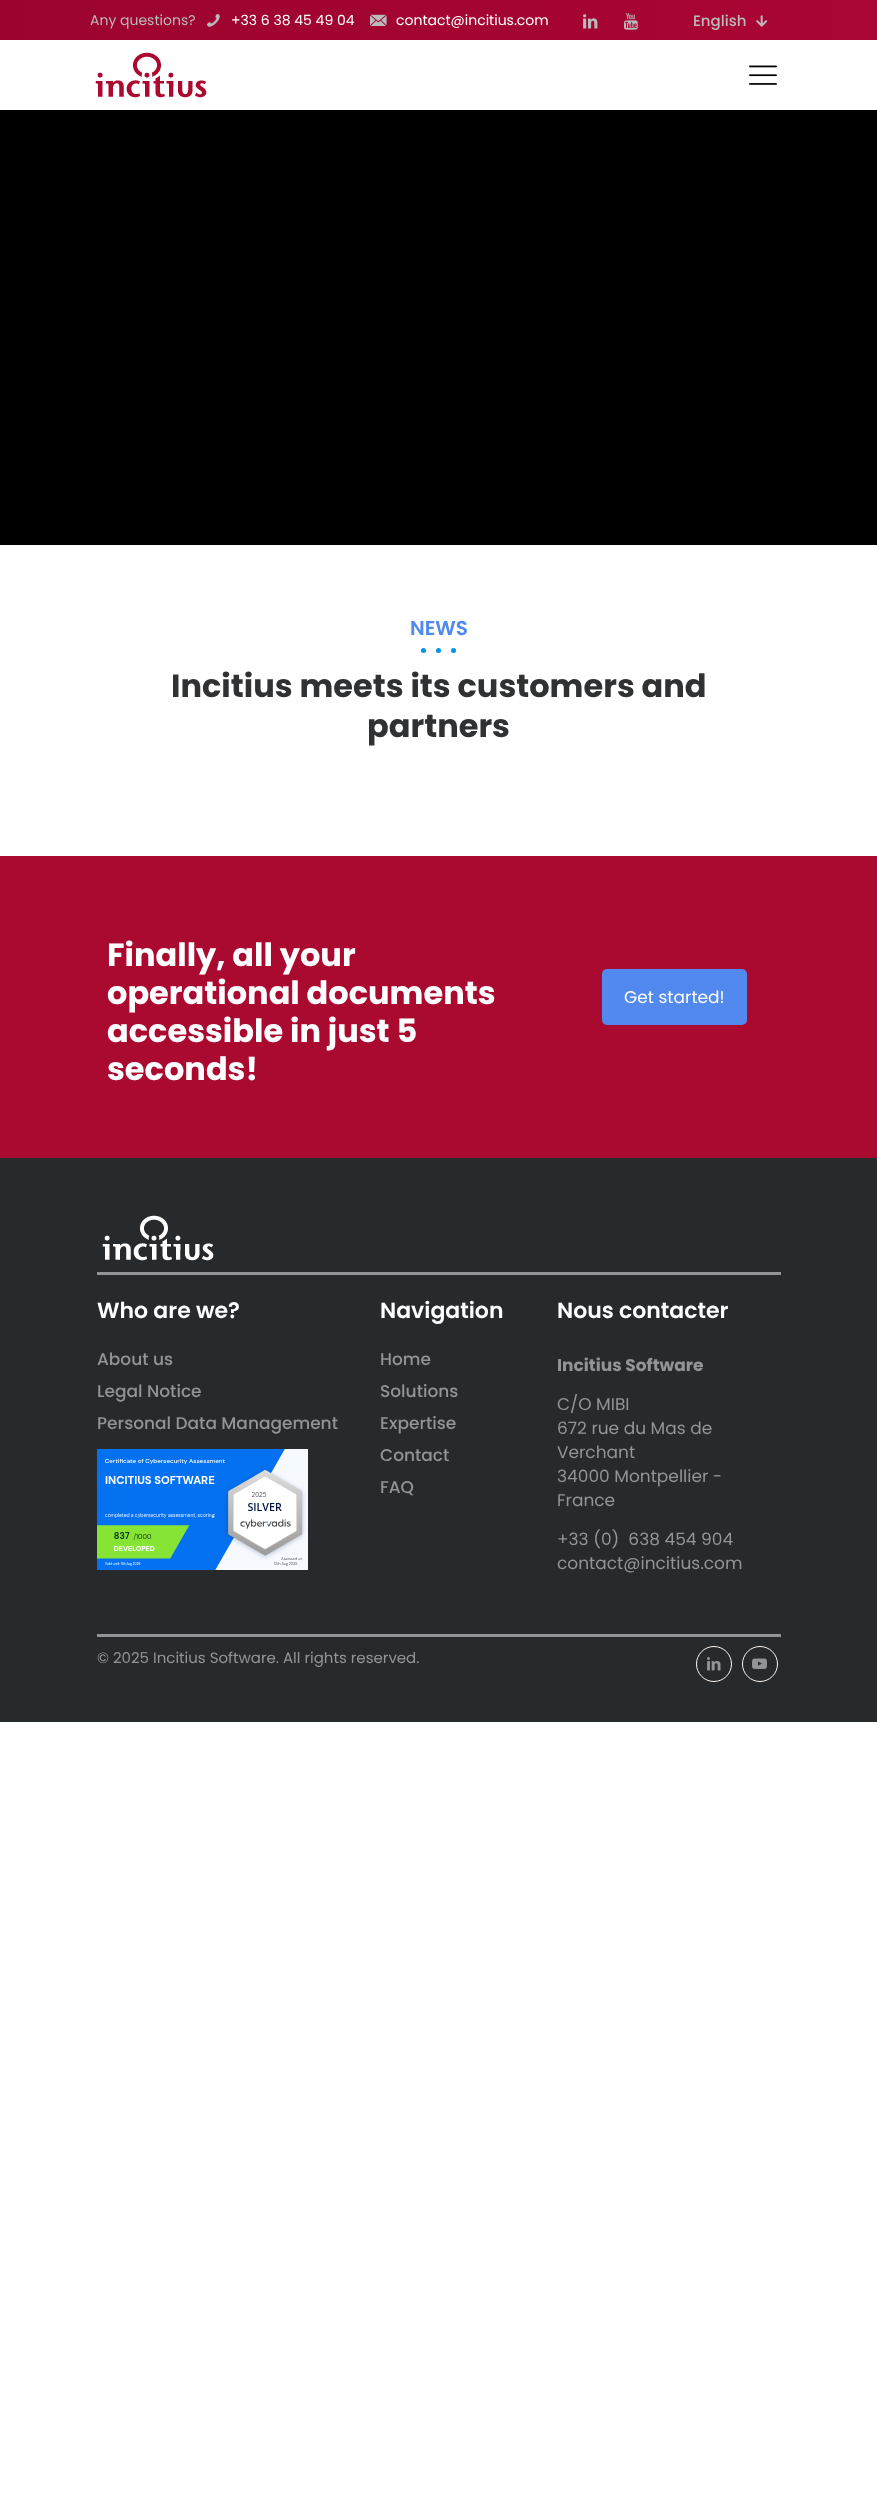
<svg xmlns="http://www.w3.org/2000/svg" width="877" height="2513">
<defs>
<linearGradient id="g1" gradientUnits="userSpaceOnUse" x1="0" y1="20" x2="877" y2="20"><stop offset="0" stop-color="#9c032f"/><stop offset="1" stop-color="#aa0534"/></linearGradient>
</defs>
<rect width="100%" height="100%" fill="#fff"/>
<rect width="877" height="40" fill="url(#g1)"/>
<text x="90" y="25" style="font-family:Poppins;font-size:14px;fill:#bbb">Any questions?</text>
<image x="207" y="14" width="13" height="13" href="media/1.png"/>
<text x="231" y="25" style="font-family:Poppins;font-size:14px;fill:#fff">+33 6 38 45 49 04</text>
<image x="370" y="14" width="17" height="12" href="media/2.png"/>
<text x="396" y="25" style="font-family:Poppins;font-size:14px;fill:#fff">contact@incitius.com</text>
<image x="583" y="14" width="15" height="15" href="media/3.png"/>
<image x="624" y="13" width="14" height="17" href="media/4.png"/>
<text x="693" y="26" style="font-family:Poppins;font-size:15px;font-weight:500;fill:#bbb">English</text>
<image x="756" y="15" width="12" height="12" href="media/5.png"/>
<image x="95" y="52" width="112" height="46" href="media/6.png"/>
<image x="749" y="65" width="28" height="20" href="media/7.png"/>
<rect y="110" width="877" height="435" fill="#000"/>
<text x="410" y="635" style="font-family:Poppins;font-size:20px;font-weight:600;fill:#5289ef">NEWS</text>
<circle cx="423.5" cy="650.5" r="2.5" fill="#0095eb"/>
<circle cx="438.5" cy="650.5" r="2.5" fill="#0095eb"/>
<circle cx="453.5" cy="650.5" r="2.5" fill="#0095eb"/>
<text x="171" y="697" style="font-family:Poppins;font-size:32px;font-weight:bold;fill:#303132">Incitius meets its customers and</text>
<text x="367" y="737" style="font-family:Poppins;font-size:32px;font-weight:bold;fill:#303132">partners</text>
<rect y="856" width="877" height="302" fill="#aa0a2f"/>
<text x="107" y="966" style="font-family:Poppins;font-size:32px;font-weight:bold;fill:#fff">Finally, all your</text>
<text x="107" y="1004" style="font-family:Poppins;font-size:32px;font-weight:bold;fill:#fff">operational documents</text>
<text x="107" y="1042" style="font-family:Poppins;font-size:32px;font-weight:bold;fill:#fff">accessible in just 5</text>
<text x="107" y="1080" style="font-family:Poppins;font-size:32px;font-weight:bold;fill:#fff">seconds!</text>
<rect x="602" y="969" width="145" height="56" rx="5" fill="#5289ef"/>
<text x="624" y="1003" style="font-family:Poppins;font-size:17px;fill:#fff">Get started!</text>
<rect y="1158" width="877" height="564" fill="#262a2c"/>
<image x="102" y="1215" width="112" height="46" href="media/8.png"/>
<rect x="97" y="1272" width="684" height="3" fill="#929596"/>
<text x="97" y="1318" style="font-family:Poppins;font-size:22px;font-weight:600;fill:#fff">Who are we?</text>
<text x="97" y="1365" style="font-family:Poppins;font-size:17px;font-weight:500;fill:#929596">About us</text>
<text x="97" y="1397" style="font-family:Poppins;font-size:17px;font-weight:500;fill:#929596">Legal Notice</text>
<text x="97" y="1429" style="font-family:Poppins;font-size:17px;font-weight:500;fill:#929596">Personal Data Management</text>
<image x="97" y="1449" width="211" height="121" href="media/9.png"/>
<text x="380" y="1318" style="font-family:Poppins;font-size:22px;font-weight:600;fill:#fff">Navigation</text>
<text x="380" y="1365" style="font-family:Poppins;font-size:17px;font-weight:500;fill:#929596">Home</text>
<text x="380" y="1397" style="font-family:Poppins;font-size:17px;font-weight:500;fill:#929596">Solutions</text>
<text x="380" y="1429" style="font-family:Poppins;font-size:17px;font-weight:500;fill:#929596">Expertise</text>
<text x="380" y="1461" style="font-family:Poppins;font-size:17px;font-weight:500;fill:#929596">Contact</text>
<text x="380" y="1493" style="font-family:Poppins;font-size:17px;font-weight:500;fill:#929596">FAQ</text>
<text x="557" y="1318" style="font-family:Poppins;font-size:22px;font-weight:600;fill:#fff">Nous contacter</text>
<text x="557" y="1371" style="font-family:Poppins;font-size:17px;font-weight:bold;fill:#929596">Incitius Software</text>
<text x="557" y="1410" style="font-family:Poppins;font-size:17px;fill:#929596">C/O MIBI</text>
<text x="557" y="1434" style="font-family:Poppins;font-size:17px;fill:#929596">672 rue du Mas de</text>
<text x="557" y="1458" style="font-family:Poppins;font-size:17px;fill:#929596">Verchant</text>
<text x="557" y="1482" style="font-family:Poppins;font-size:17px;fill:#929596">34000 Montpellier -</text>
<text x="557" y="1506" style="font-family:Poppins;font-size:17px;fill:#929596">France</text>
<text x="557" y="1545" style="font-family:Poppins;font-size:17px;fill:#929596" xml:space="preserve">+33 (0)  638 454 904</text>
<text x="557" y="1569" style="font-family:Poppins;font-size:17px;fill:#929596">contact@incitius.com</text>
<rect x="97" y="1634" width="684" height="3" fill="#929596"/>
<text x="97" y="1663" style="font-family:Poppins;font-size:15px;fill:#929596">© 2025 Incitius Software. All rights reserved.</text>
<circle cx="714" cy="1664" r="17.5" fill="none" stroke="#fff4f4"/>
<image x="707" y="1657" width="14" height="14" href="media/10.png"/>
<circle cx="760" cy="1664" r="17.5" fill="none" stroke="#fff4f4"/>
<image x="752" y="1658" width="15" height="11" href="media/11.png"/>
</svg>
